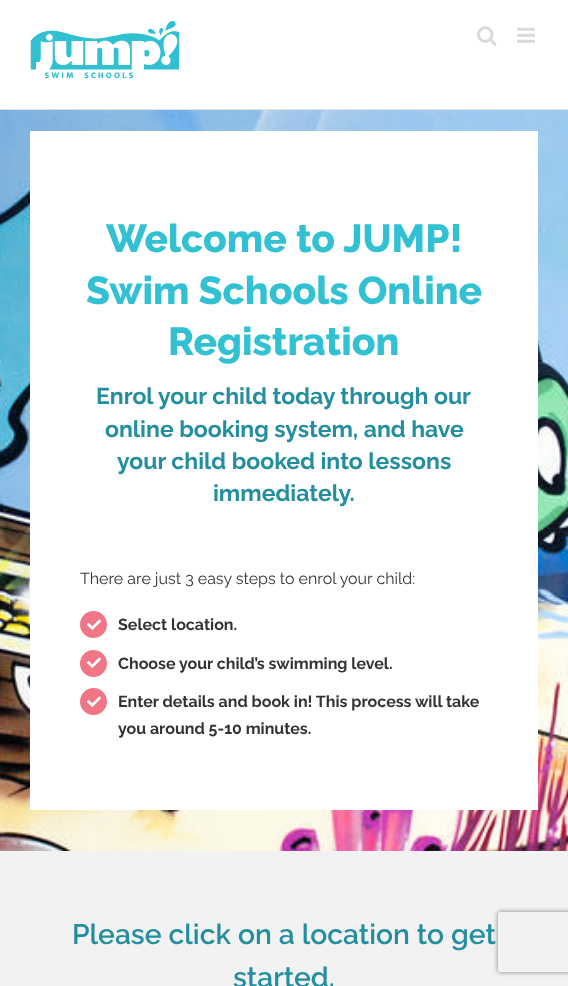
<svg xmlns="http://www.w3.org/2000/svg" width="568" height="986">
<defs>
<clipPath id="clip1"><path d="M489 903h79v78h-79zm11 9h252c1 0 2 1 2 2v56c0 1-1 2-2 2h-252c-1 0-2-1-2-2v-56c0-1 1-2 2-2z" clip-rule="evenodd"/></clipPath>
</defs>
<rect width="100%" height="100%" fill="#fff"/>
<rect y="109" width="568" height="1" fill="#e1e1e1"/>
<image x="30" y="21" width="150" height="58" href="media/1.png"/>
<image x="477" y="26" width="20" height="20" href="media/2.png"/>
<image x="517" y="27" width="18" height="16" href="media/3.png"/>
<image x="0" y="110" width="568" height="741" href="media/4.png"/>
<rect x="30" y="131" width="508" height="679" fill="#fff"/>
<text x="106" y="252" style="font-family:Raleway;font-size:39px;font-weight:800;fill:#32c1d2">Welcome to JUMP!</text>
<text x="86" y="304" style="font-family:Raleway;font-size:39px;font-weight:800;fill:#32c1d2">Swim Schools Online</text>
<text x="168" y="355" style="font-family:Raleway;font-size:39px;font-weight:800;fill:#32c1d2">Registration</text>
<text x="96" y="404" style="font-family:Raleway;font-size:23px;font-weight:bold;fill:#238e9e">Enrol your child today through our</text>
<text x="105" y="437" style="font-family:Raleway;font-size:23px;font-weight:bold;fill:#238e9e">online booking system, and have</text>
<text x="117" y="469" style="font-family:Raleway;font-size:23px;font-weight:bold;fill:#238e9e">your child booked into lessons</text>
<text x="213" y="501" style="font-family:Raleway;font-size:23px;font-weight:bold;fill:#238e9e">immediately.</text>
<text x="80" y="584" style="font-family:Raleway;font-size:16px;fill:#333">There are just 3 easy steps to enrol your child:</text>
<circle cx="93.5" cy="624.5" r="13.5" fill="#f07686"/>
<image x="87" y="619" width="14" height="11" href="media/5.png"/>
<text x="118" y="630" style="font-family:Raleway;font-size:16px;font-weight:bold;fill:#333">Select location.</text>
<circle cx="93.5" cy="663.5" r="13.5" fill="#f07686"/>
<image x="87" y="657" width="14" height="11" href="media/5.png"/>
<text x="118" y="669" style="font-family:Raleway;font-size:16px;font-weight:bold;fill:#333">Choose your child’s swimming level.</text>
<circle cx="93.5" cy="701.5" r="13.5" fill="#f07686"/>
<image x="87" y="696" width="14" height="11" href="media/5.png"/>
<text x="118" y="707" style="font-family:Raleway;font-size:16px;font-weight:bold;fill:#333">Enter details and book in! This process will take</text>
<text x="118" y="734" style="font-family:Raleway;font-size:16px;font-weight:bold;fill:#333">you around 5-10 minutes.</text>
<rect y="851" width="568" height="135" fill="#f2f2f2"/>
<g clip-path="url(#clip1)">
<rect x="498" y="912" width="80" height="60" rx="2" fill="#808080" filter="blur(2.5px)"/>
</g>
<text x="72" y="944" style="font-family:Raleway;font-size:28.25px;font-weight:600;fill:#238e9e">Please click on a location to get</text>
<text x="233" y="987" style="font-family:Raleway;font-size:28.25px;font-weight:600;fill:#238e9e">started.</text>
</svg>
